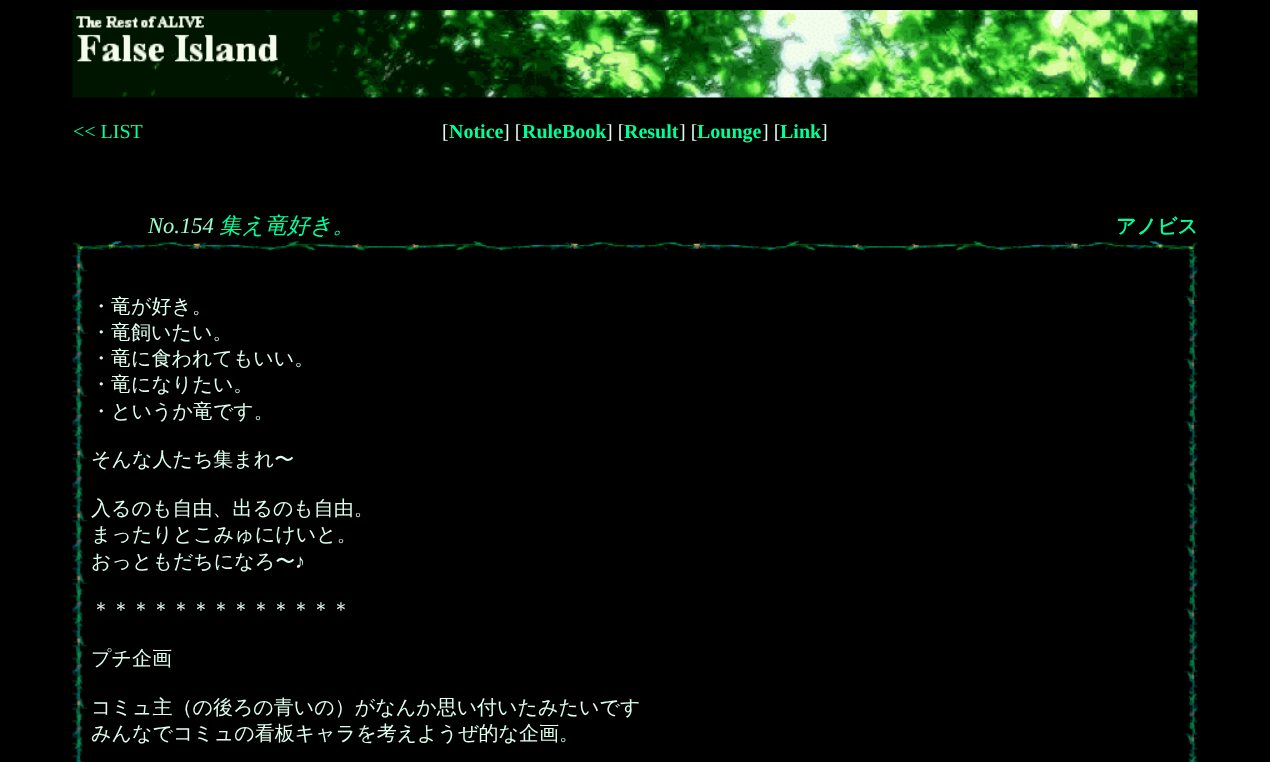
<svg xmlns="http://www.w3.org/2000/svg" width="1270" height="762">
<rect width="100%" height="100%" fill="#000"/>
<image x="72" y="10" width="1126" height="88" href="media/1.png"/>
<text x="73" y="138" style="font-family:Liberation Serif;font-size:20px;fill:#0f9">&lt;&lt; LIST</text>
<text x="442" y="138" style="font-family:Liberation Serif;font-size:20px;fill:#dfe">[</text>
<text x="449" y="138" style="font-family:Liberation Serif;font-size:20px;font-weight:bold;fill:#0f9">Notice</text>
<text x="503" y="138" style="font-family:Liberation Serif;font-size:20px;fill:#dfe">] [</text>
<text x="522" y="138" style="font-family:Liberation Serif;font-size:20px;font-weight:bold;fill:#0f9">RuleBook</text>
<text x="606" y="138" style="font-family:Liberation Serif;font-size:20px;fill:#dfe">] [</text>
<text x="624" y="138" style="font-family:Liberation Serif;font-size:20px;font-weight:bold;fill:#0f9">Result</text>
<text x="679" y="138" style="font-family:Liberation Serif;font-size:20px;fill:#dfe">] [</text>
<text x="697" y="138" style="font-family:Liberation Serif;font-size:20px;font-weight:bold;fill:#0f9">Lounge</text>
<text x="762" y="138" style="font-family:Liberation Serif;font-size:20px;fill:#dfe">] [</text>
<text x="780" y="138" style="font-family:Liberation Serif;font-size:20px;font-weight:bold;fill:#0f9">Link</text>
<text x="821" y="138" style="font-family:Liberation Serif;font-size:20px;fill:#dfe">]</text>
<text x="148" y="233" style="font-family:Liberation Serif;font-size:22.5px;font-style:italic;fill:#9fc">No.154</text>
<text x="219" y="233" style="font-family:WenQuanYi Zen Hei;font-size:22.5px;font-weight:500;font-style:italic;fill:#0f9">集え竜好き。</text>
<text x="1116" y="233" style="font-family:WenQuanYi Zen Hei;font-size:20px;font-weight:bold;fill:#0f9">アノビス</text>
<image x="72" y="252" width="1126" height="510" href="media/3.png"/>
<image x="72" y="240" width="1126" height="13" href="media/2.png"/>
<text x="91" y="313" style="font-family:WenQuanYi Zen Hei;font-size:20px;font-weight:500;fill:#dfe">・竜が好き。</text>
<text x="91" y="339" style="font-family:WenQuanYi Zen Hei;font-size:20px;font-weight:500;fill:#dfe">・竜飼いたい。</text>
<text x="91" y="365" style="font-family:WenQuanYi Zen Hei;font-size:20px;font-weight:500;fill:#dfe">・竜に食われてもいい。</text>
<text x="91" y="391" style="font-family:WenQuanYi Zen Hei;font-size:20px;font-weight:500;fill:#dfe">・竜になりたい。</text>
<text x="91" y="418" style="font-family:WenQuanYi Zen Hei;font-size:20px;font-weight:500;fill:#dfe">・というか竜です。</text>
<text x="91" y="466" style="font-family:WenQuanYi Zen Hei;font-size:20px;font-weight:500;fill:#dfe">そんな人たち集まれ〜</text>
<text x="91" y="515" style="font-family:WenQuanYi Zen Hei;font-size:20px;font-weight:500;fill:#dfe">入るのも自由、出るのも自由。</text>
<text x="91" y="541" style="font-family:WenQuanYi Zen Hei;font-size:20px;font-weight:500;fill:#dfe">まったりとこみゅにけいと。</text>
<text x="91" y="568" style="font-family:WenQuanYi Zen Hei;font-size:20px;font-weight:500;fill:#dfe">おっともだちになろ〜</text>
<text x="295" y="568" style="font-family:Liberation Serif;font-size:20px;fill:#dfe">♪</text>
<text x="91" y="616" style="font-family:WenQuanYi Zen Hei;font-size:20px;font-weight:500;fill:#dfe">＊＊＊＊＊＊＊＊＊＊＊＊＊</text>
<text x="91" y="665" style="font-family:WenQuanYi Zen Hei;font-size:20px;font-weight:500;fill:#dfe">プチ企画</text>
<text x="91" y="714" style="font-family:WenQuanYi Zen Hei;font-size:20px;font-weight:500;fill:#dfe">コミュ主（の後ろの青いの）がなんか思い付いたみたいです</text>
<text x="91" y="740" style="font-family:WenQuanYi Zen Hei;font-size:20px;font-weight:500;fill:#dfe">みんなでコミュの看板キャラを考えようぜ的な企画。</text>
</svg>
